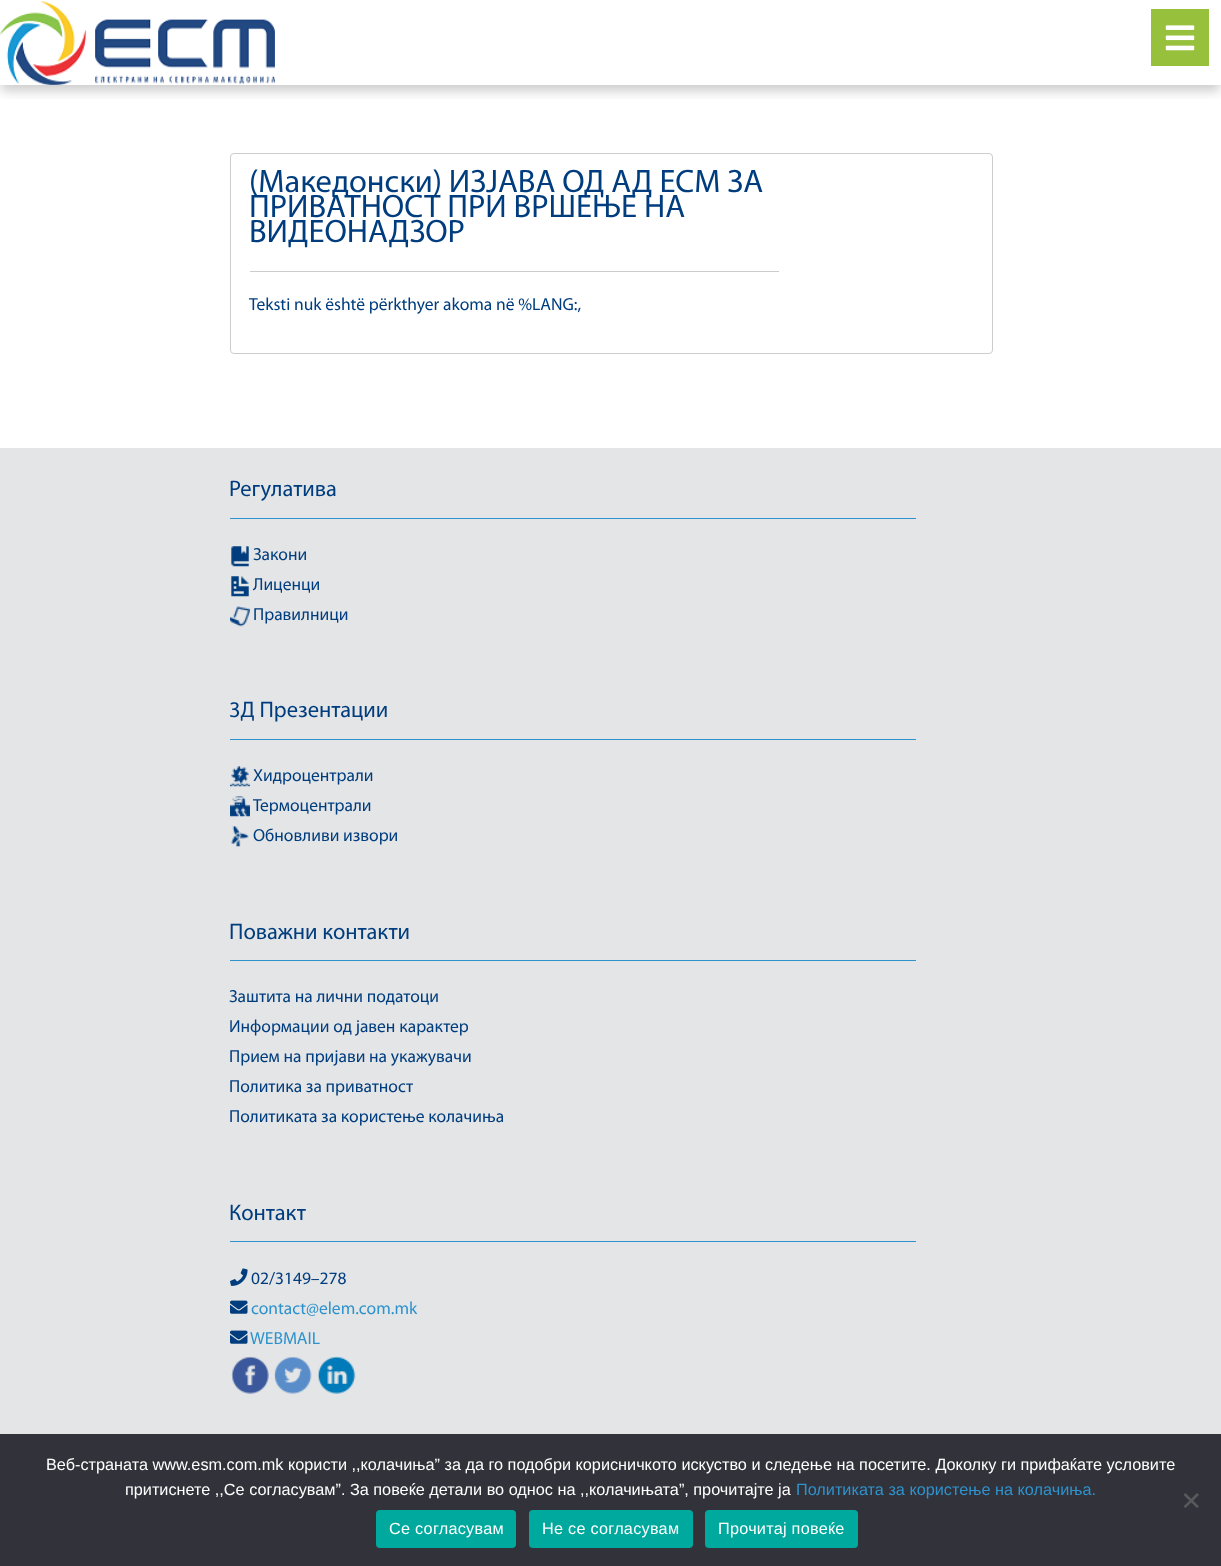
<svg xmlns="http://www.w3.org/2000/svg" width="1221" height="1566">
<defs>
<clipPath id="clip1"><rect x="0" y="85" width="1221" height="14"/></clipPath>
</defs>
<rect width="100%" height="100%" fill="#fff"/>
<g clip-path="url(#clip1)">
<rect x="1" y="10" width="1219" height="81" fill="#00000033" filter="blur(6px)"/>
</g>
<image x="0" y="1" width="275" height="84" href="media/1.png"/>
<rect x="1151" y="9" width="58" height="57" fill="#97c13c"/>
<image x="1165" y="25" width="30" height="26" href="media/2.png"/>
<rect x="230.5" y="153.5" width="762" height="200" rx="3.5" fill="none" stroke="#ccc"/>
<text x="249" y="192" style="font-family:Myriad;font-size:32.5px;fill:#003d7e">(Македонски) ИЗЈАВА ОД АД ЕСМ ЗА</text>
<text x="249" y="217" style="font-family:Myriad;font-size:32.5px;fill:#003d7e">ПРИВАТНОСТ ПРИ ВРШЕЊЕ НА</text>
<text x="249" y="242" style="font-family:Myriad;font-size:32.5px;fill:#003d7e">ВИДЕОНАДЗОР</text>
<rect x="250" y="271" width="529" height="1" fill="#ccc"/>
<text x="249" y="310" style="font-family:Myriad;font-size:17.5px;fill:#003d7e">Teksti nuk është përkthyer akoma në %LANG:,</text>
<rect y="448" width="1221" height="986" fill="#e4e5e6"/>
<text x="229" y="496" style="font-family:Myriad;font-size:22.5px;fill:#003d7e">Регулатива</text>
<rect x="230" y="518" width="686" height="1" fill="#2e93cd"/>
<image x="231" y="546" width="18" height="21" href="media/3.png"/>
<text x="253" y="560" style="font-family:Myriad;font-size:17.5px;fill:#003d7e">Закони</text>
<image x="231" y="576" width="18" height="21" href="media/4.png"/>
<text x="253" y="590" style="font-family:Myriad;font-size:17.5px;fill:#003d7e">Лиценци</text>
<image x="230" y="606" width="20" height="21" href="media/5.png"/>
<text x="253" y="620" style="font-family:Myriad;font-size:17.5px;fill:#003d7e">Правилници</text>
<text x="229" y="717" style="font-family:Myriad;font-size:22.5px;fill:#003d7e">3Д Презентации</text>
<rect x="230" y="739" width="686" height="1" fill="#2e93cd"/>
<image x="230" y="766" width="20" height="21" href="media/6.png"/>
<text x="253" y="781" style="font-family:Myriad;font-size:17.5px;fill:#003d7e">Хидроцентрали</text>
<image x="230" y="796" width="20" height="21" href="media/7.png"/>
<text x="253" y="811" style="font-family:Myriad;font-size:17.5px;fill:#003d7e">Термоцентрали</text>
<image x="231" y="826" width="18" height="21" href="media/8.png"/>
<text x="253" y="841" style="font-family:Myriad;font-size:17.5px;fill:#003d7e">Обновливи извори</text>
<text x="229" y="939" style="font-family:Myriad;font-size:22.5px;fill:#003d7e">Поважни контакти</text>
<rect x="230" y="960" width="686" height="1" fill="#2e93cd"/>
<text x="229" y="1002" style="font-family:Myriad;font-size:17.5px;fill:#003d7e">Заштита на лични податоци</text>
<text x="229" y="1032" style="font-family:Myriad;font-size:17.5px;fill:#003d7e">Информации од јавен карактер</text>
<text x="229" y="1062" style="font-family:Myriad;font-size:17.5px;fill:#003d7e">Прием на пријави на укажувачи</text>
<text x="229" y="1092" style="font-family:Myriad;font-size:17.5px;fill:#003d7e">Политика за приватност</text>
<text x="229" y="1122" style="font-family:Myriad;font-size:17.5px;fill:#003d7e">Политиката за користење колачиња</text>
<text x="229" y="1220" style="font-family:Myriad;font-size:22.5px;fill:#003d7e">Контакт</text>
<rect x="230" y="1241" width="686" height="1" fill="#2e93cd"/>
<image x="230" y="1268" width="18" height="18" href="media/9.png"/>
<text x="251" y="1284" style="font-family:Myriad;font-size:17.5px;fill:#003d7e">02/3149–278</text>
<image x="230" y="1300" width="18" height="14" href="media/10.png"/>
<text x="251" y="1314" style="font-family:Myriad;font-size:17.5px;fill:#2e93cd">contact@elem.com.mk</text>
<image x="230" y="1330" width="18" height="14" href="media/10.png"/>
<text x="250" y="1344" style="font-family:Myriad;font-size:17.5px;fill:#2e93cd">WEBMAIL</text>
<image x="231" y="1356" width="38" height="38" href="media/11.png"/>
<image x="274" y="1356" width="38" height="38" href="media/12.png"/>
<image x="317" y="1356" width="39" height="38" href="media/13.png"/>
<rect y="1434" width="1221" height="132" fill="#32323a"/>
<text x="46" y="1470" style="font-family:Liberation Sans;font-size:16.25px;fill:#fff">Веб-страната www.esm.com.mk користи ,,колачиња” за да го подобри корисничкото искуство и следење на посетите. Доколку ги прифаќате условите</text>
<text x="125" y="1495" style="font-family:Liberation Sans;font-size:16.25px;fill:#fff">притиснете ,,Се согласувам”. За повеќе детали во однос на ,,колачињата”, прочитајте ја</text>
<text x="796" y="1495" style="font-family:Liberation Sans;font-size:16.25px;fill:#2e93cd">Политиката за користење на колачиња.</text>
<path d="M1197 1493l2 2l-13.5 13l-2-1.5z" fill="#59595d"/>
<path d="M1183.5 1495l2-2l13.5 13.5l-2 1.5z" fill="#59595d"/>
<rect x="376" y="1510" width="140" height="38" rx="4" fill="#00a99d"/>
<text x="389" y="1534" style="font-family:Liberation Sans;font-size:16.25px;letter-spacing:0.25px;fill:#fff">Се согласувам</text>
<rect x="529" y="1510" width="164" height="38" rx="4" fill="#00a99d"/>
<text x="542" y="1534" style="font-family:Liberation Sans;font-size:16.25px;letter-spacing:0.25px;fill:#fff">Не се согласувам</text>
<rect x="705" y="1510" width="153" height="38" rx="4" fill="#00a99d"/>
<text x="718" y="1534" style="font-family:Liberation Sans;font-size:16.25px;letter-spacing:0.25px;fill:#fff">Прочитај повеќе</text>
</svg>
